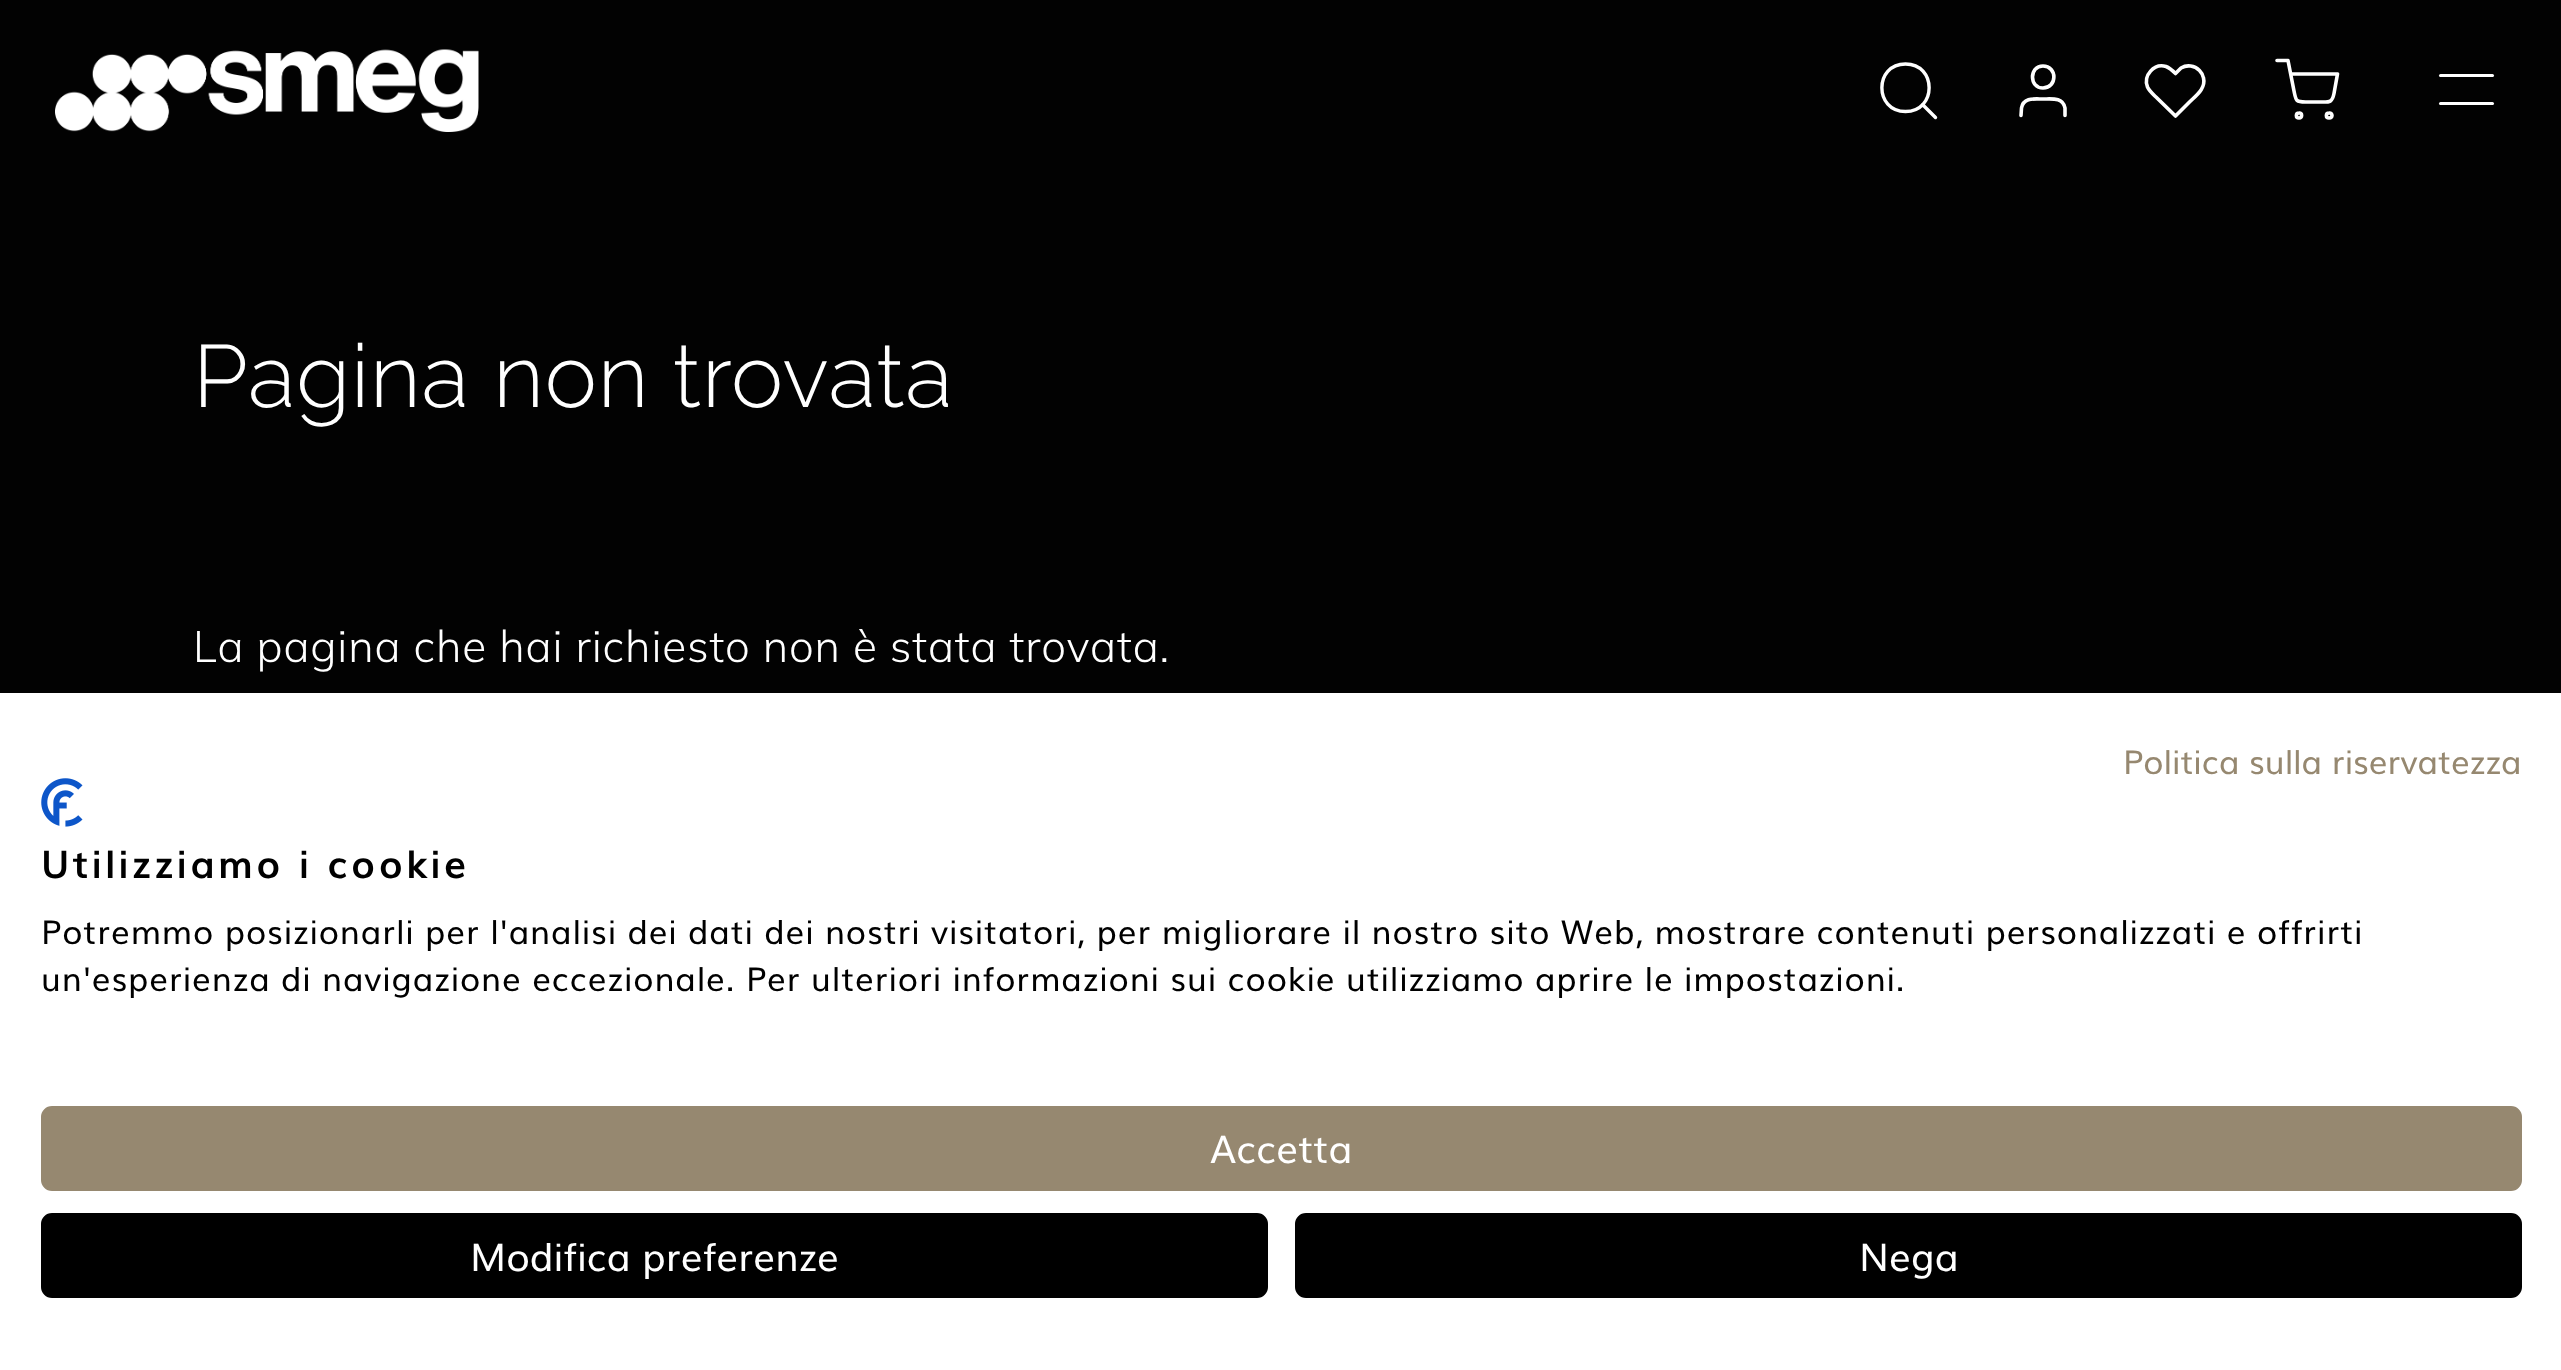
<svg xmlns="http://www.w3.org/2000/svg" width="2561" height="1370">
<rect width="100%" height="100%" fill="#020202"/>
<image x="55" y="49" width="424" height="83" href="media/1.png"/>
<path d="M1905.5 111.5c31.5 0 31.5-47.5 0-47.5c-31.5 0-31.5 47.5 0 47.5zm30 6l-13-13" fill="none" stroke="#fff" stroke-width="3.4" stroke-linecap="round" stroke-linejoin="round"/>
<path d="M2065 115.5v-7.5c-2-11-13.5-9-22-9c-8 0-19.5-2-21.5 9l-.5 7.5m22-27.5c14.5 0 14.5-22 0-22c-14 0-14 22 0 22z" fill="none" stroke="#fff" stroke-width="3.6" stroke-linecap="round" stroke-linejoin="round"/>
<path d="M2199.5 70.5c-5-5-12.5-6-18.5-2.5l-5.5 5.5c-3-3-5.5-5.5-9.5-7c-12-3.5-23 9-18.5 20.5c2 4.5 6.5 8 10 11.5l18 17.5l14-14c6.5-6.5 16.5-13.5 14-24c-.5-2.5-2-5.5-4-7.5z" fill="none" stroke="#fff" stroke-width="3.6" stroke-linecap="round" stroke-linejoin="round"/>
<path d="M2299 118c3.5 0 3.5-5.5 0-5c-3.5 0-3.5 5 0 5zm30 0c4 0 4-5.5 0-5c-3.5 0-3.5 5 0 5z" fill="none" stroke="#fff" stroke-width="3.6" stroke-linecap="round" stroke-linejoin="round"/>
<path d="M2277 60.5h11l6 30.5c2 9.5 1.5 11 11.5 11h13c10.5 0 13.5 1.5 15.5-8.5l3.5-19.5h-46.5" fill="none" stroke="#fff" stroke-width="3.6" stroke-linecap="round" stroke-linejoin="round"/>
<rect x="2439" y="74" width="55" height="3" rx="1.5" fill="#fff"/>
<rect x="2439" y="102" width="55" height="3" rx="1.5" fill="#fff"/>
<text x="193" y="407" style="font-family:Raleway;font-size:88px;font-weight:300;letter-spacing:0.88px;fill:#fff">Pagina non trovata</text>
<text x="193" y="662" style="font-family:Mulish;font-size:44px;font-weight:300;letter-spacing:0.88px;fill:#fff">La pagina che hai richiesto non è stata trovata.</text>
<rect y="693" width="2561" height="677" fill="#fff"/>
<text x="2123" y="774" style="font-family:Muli;font-size:33px;fill:#968870">Politica sulla riservatezza</text>
<image x="41" y="778" width="42" height="49" href="media/2.png"/>
<text x="41" y="878" style="font-family:Muli;font-size:38.5px;font-weight:bold;letter-spacing:3.6px;fill:#000">Utilizziamo i cookie</text>
<text x="41" y="944" style="font-family:Muli;font-size:33px;letter-spacing:0.88px;fill:#000">Potremmo posizionarli per l'analisi dei dati dei nostri visitatori, per migliorare il nostro sito Web, mostrare contenuti personalizzati e offrirti</text>
<text x="41" y="991" style="font-family:Muli;font-size:33px;letter-spacing:0.88px;fill:#000">un'esperienza di navigazione eccezionale. Per ulteriori informazioni sui cookie utilizziamo aprire le impostazioni.</text>
<rect x="42.5" y="1107.5" width="2478" height="82" rx="9.5" fill="#968870" stroke="#968870" stroke-width="3"/>
<text x="1210" y="1163" style="font-family:Muli;font-size:38.5px;fill:#fff">Accetta</text>
<rect x="42.5" y="1214.5" width="1224" height="82" rx="9.5" fill="#000" stroke="#000" stroke-width="3"/>
<text x="470" y="1271" style="font-family:Muli;font-size:38.5px;fill:#fff">Modifica preferenze</text>
<rect x="1296.5" y="1214.5" width="1224" height="82" rx="9.5" fill="#000" stroke="#000" stroke-width="3"/>
<text x="1859" y="1271" style="font-family:Muli;font-size:38.5px;fill:#fff">Nega</text>
</svg>
